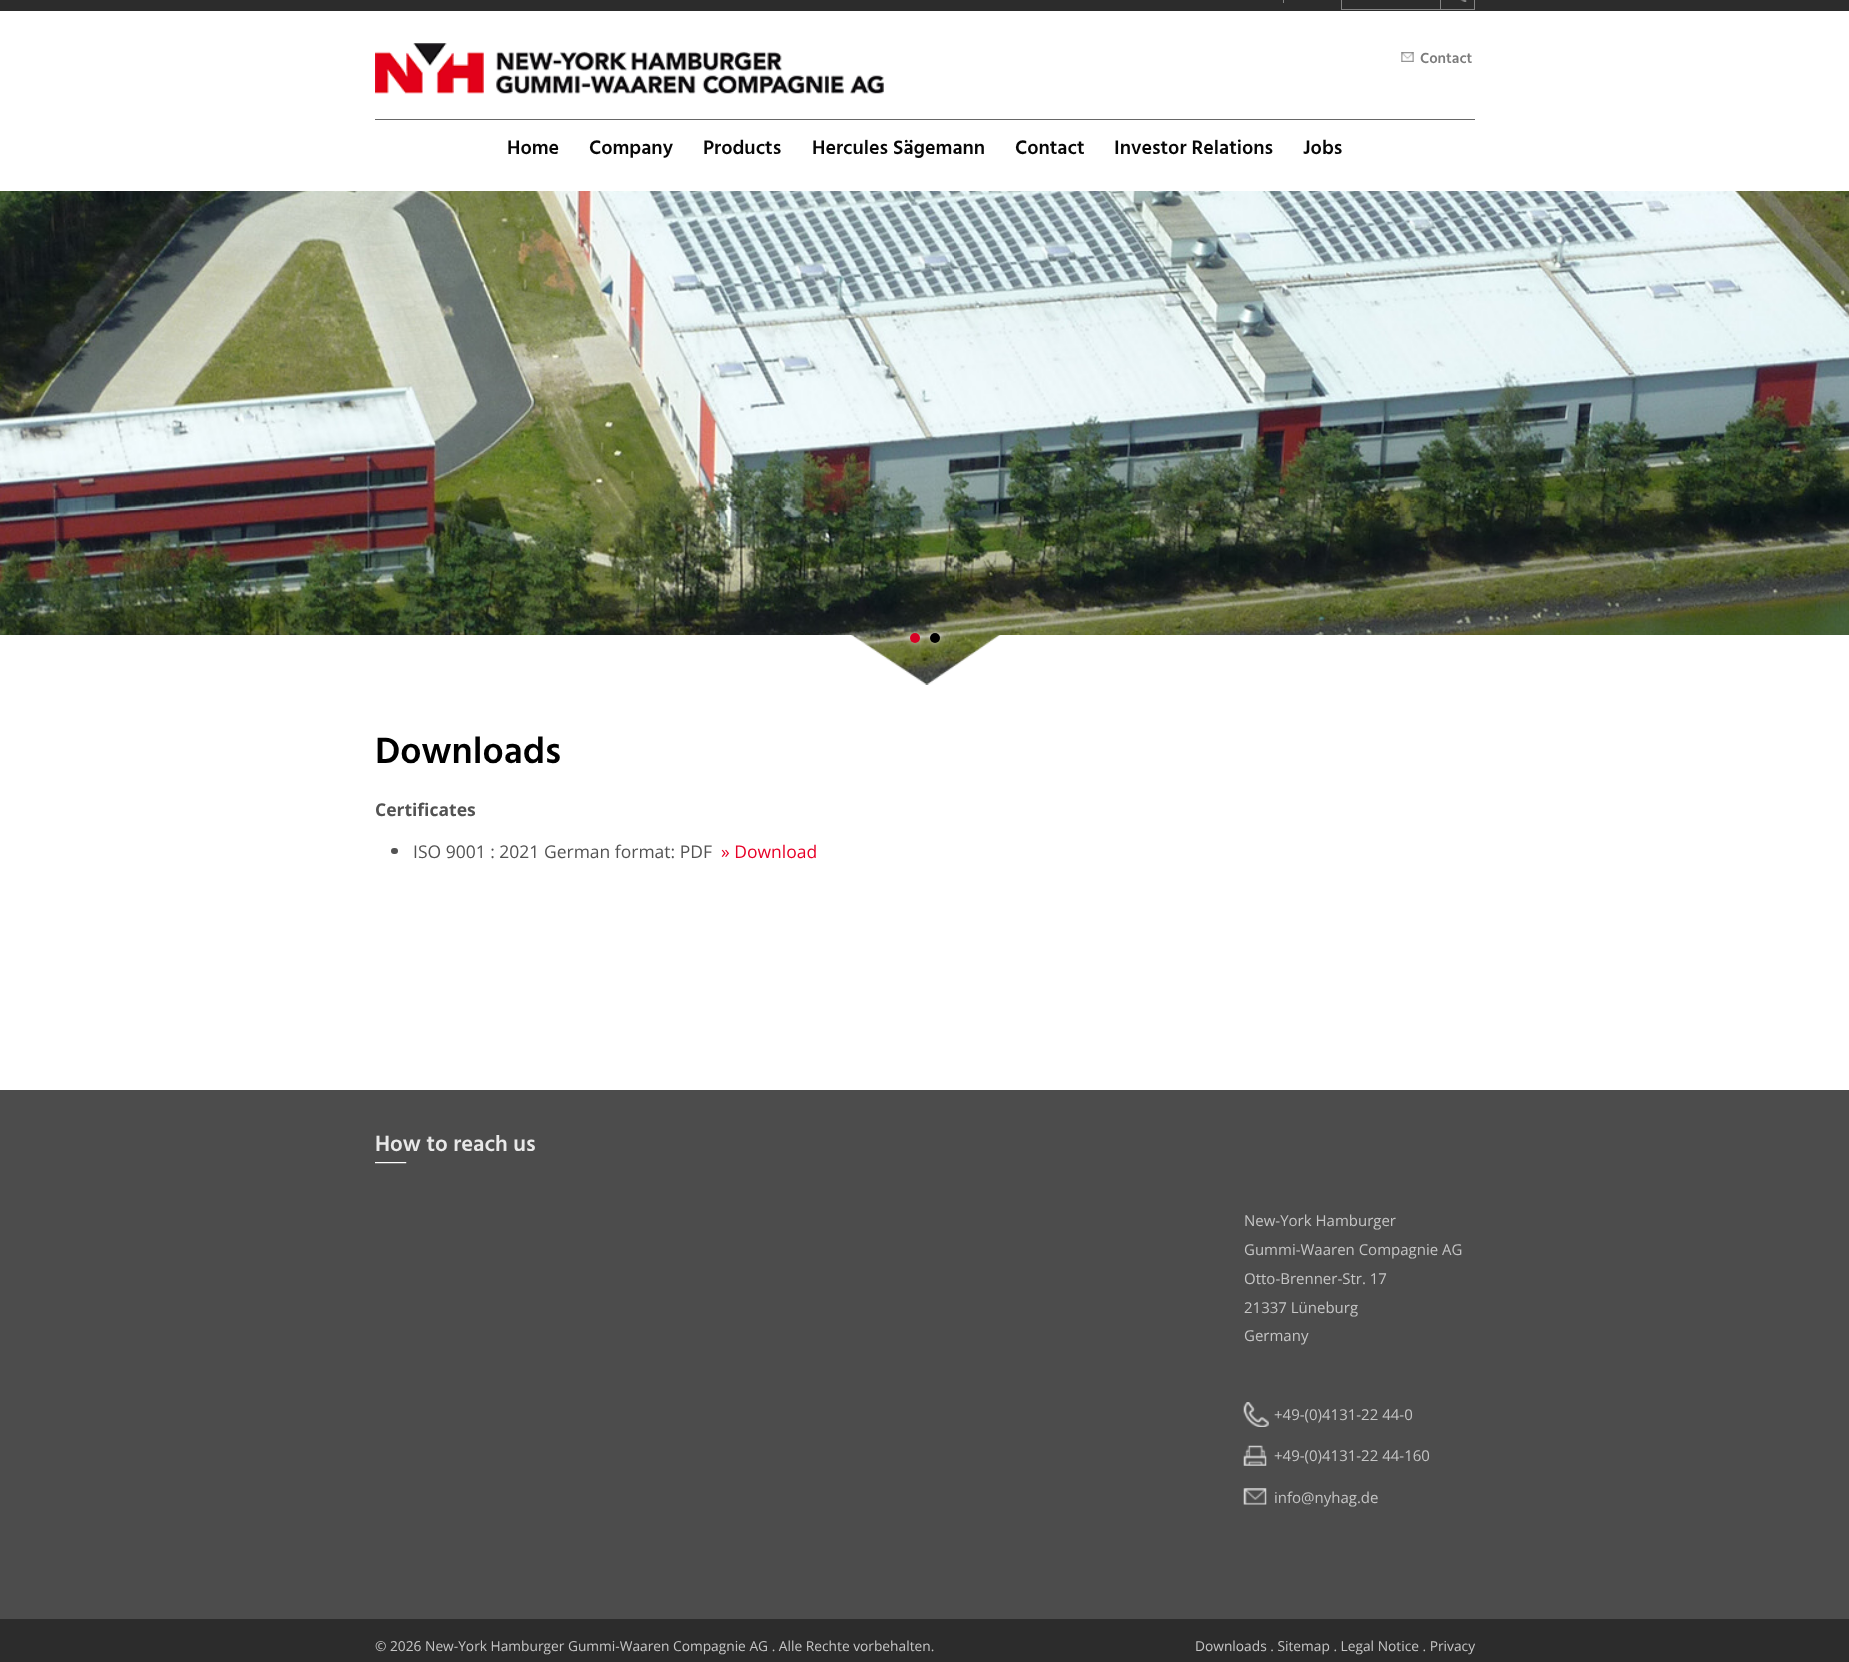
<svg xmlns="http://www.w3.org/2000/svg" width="1849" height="1662">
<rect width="100%" height="100%" fill="#fff"/>
<rect width="1849" height="11" fill="#2c2c2c"/>
<rect x="1283" width="1" height="3" fill="#848484"/>
<rect x="1341.5" y="-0.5" width="99" height="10" fill="none" stroke="#848484"/>
<image x="1460" y="0" width="7" height="2" href="media/1.png"/>
<rect x="1474" width="1" height="10" fill="#848484"/>
<rect x="1441" y="9" width="34" height="1" fill="#848484"/>
<image x="375" y="43" width="509" height="51" href="media/2.png"/>
<image x="1401" y="52" width="13" height="10" href="media/3.png"/>
<text x="1420" y="63" style="font-family:Hind;font-size:15px;font-weight:600;fill:#7c7c7c">Contact</text>
<rect x="375" y="119" width="1100" height="1" fill="#676767"/>
<text x="507" y="154" style="font-family:Hind;font-size:20px;font-weight:600;fill:#070707">Home</text>
<text x="589" y="154" style="font-family:Hind;font-size:20px;font-weight:600;fill:#070707">Company</text>
<text x="703" y="154" style="font-family:Hind;font-size:20px;font-weight:600;fill:#070707">Products</text>
<text x="812" y="154" style="font-family:Hind;font-size:20px;font-weight:600;fill:#070707">Hercules Sägemann</text>
<text x="1015" y="154" style="font-family:Hind;font-size:20px;font-weight:600;fill:#070707">Contact</text>
<text x="1114" y="154" style="font-family:Hind;font-size:20px;font-weight:600;fill:#070707">Investor Relations</text>
<text x="1303" y="154" style="font-family:Hind;font-size:20px;font-weight:600;fill:#070707">Jobs</text>
<image x="0" y="191" width="1849" height="494" href="media/4.png"/>
<image x="0" y="635" width="1849" height="50" href="media/5.png"/>
<rect x="910" y="633" width="10" height="10" rx="5" fill="#fff" filter="blur(4.5px)"/>
<circle cx="915" cy="638" r="5" fill="#d70024"/>
<rect x="930" y="633" width="10" height="10" rx="5" fill="#fff" filter="blur(4.5px)"/>
<circle cx="935" cy="638" r="5" fill="#000"/>
<text x="375" y="763" style="font-family:Hind;font-size:37.5px;font-weight:600;fill:#000">Downloads</text>
<text x="375" y="816" style="font-family:Open Sans;font-size:17.5px;font-weight:bold;fill:#535353">Certificates</text>
<rect x="391" y="848" width="7" height="6" rx="3" fill="#535353"/>
<text x="413" y="858" style="font-family:Open Sans;font-size:17.5px;fill:#535353">ISO 9001 : 2021 German format: PDF</text>
<text x="721" y="858" style="font-family:Open Sans;font-size:17.5px;fill:#e70027">» Download</text>
<rect y="1090" width="1849" height="529" fill="#4c4c4c"/>
<rect y="1619" width="1849" height="43" fill="#2c2c2c"/>
<image x="375" y="1162" width="32" height="2" href="media/6.png"/>
<text x="375" y="1151" style="font-family:Hind;font-size:22.5px;font-weight:600;fill:#e8e8e8">How to reach us</text>
<text x="1244" y="1226" style="font-family:Open Sans;font-size:15px;fill:#c5c5c5">New-York Hamburger</text>
<text x="1244" y="1255" style="font-family:Open Sans;font-size:15px;fill:#c5c5c5">Gummi-Waaren Compagnie AG</text>
<text x="1244" y="1284" style="font-family:Open Sans;font-size:15px;fill:#c5c5c5">Otto-Brenner-Str. 17</text>
<text x="1244" y="1313" style="font-family:Open Sans;font-size:15px;fill:#c5c5c5">21337 Lüneburg</text>
<text x="1244" y="1341" style="font-family:Open Sans;font-size:15px;fill:#c5c5c5">Germany</text>
<image x="1243" y="1402" width="26" height="25" href="media/7.png"/>
<text x="1274" y="1420" style="font-family:Open Sans;font-size:15px;fill:#c5c5c5">+49-(0)4131-22 44-0</text>
<image x="1243" y="1445" width="24" height="21" href="media/8.png"/>
<text x="1274" y="1461" style="font-family:Open Sans;font-size:15px;fill:#c5c5c5">+49-(0)4131-22 44-160</text>
<image x="1243" y="1488" width="24" height="17" href="media/9.png"/>
<text x="1274" y="1503" style="font-family:Open Sans;font-size:15px;fill:#c5c5c5">info@nyhag.de</text>
<text x="375" y="1651" style="font-family:Open Sans;font-size:13.75px;fill:#c5c5c5">© 2026 New-York Hamburger Gummi-Waaren Compagnie AG . Alle Rechte vorbehalten.</text>
<text x="1195" y="1651" style="font-family:Open Sans;font-size:13.75px;fill:#c5c5c5">Downloads . Sitemap . Legal Notice . Privacy</text>
</svg>
